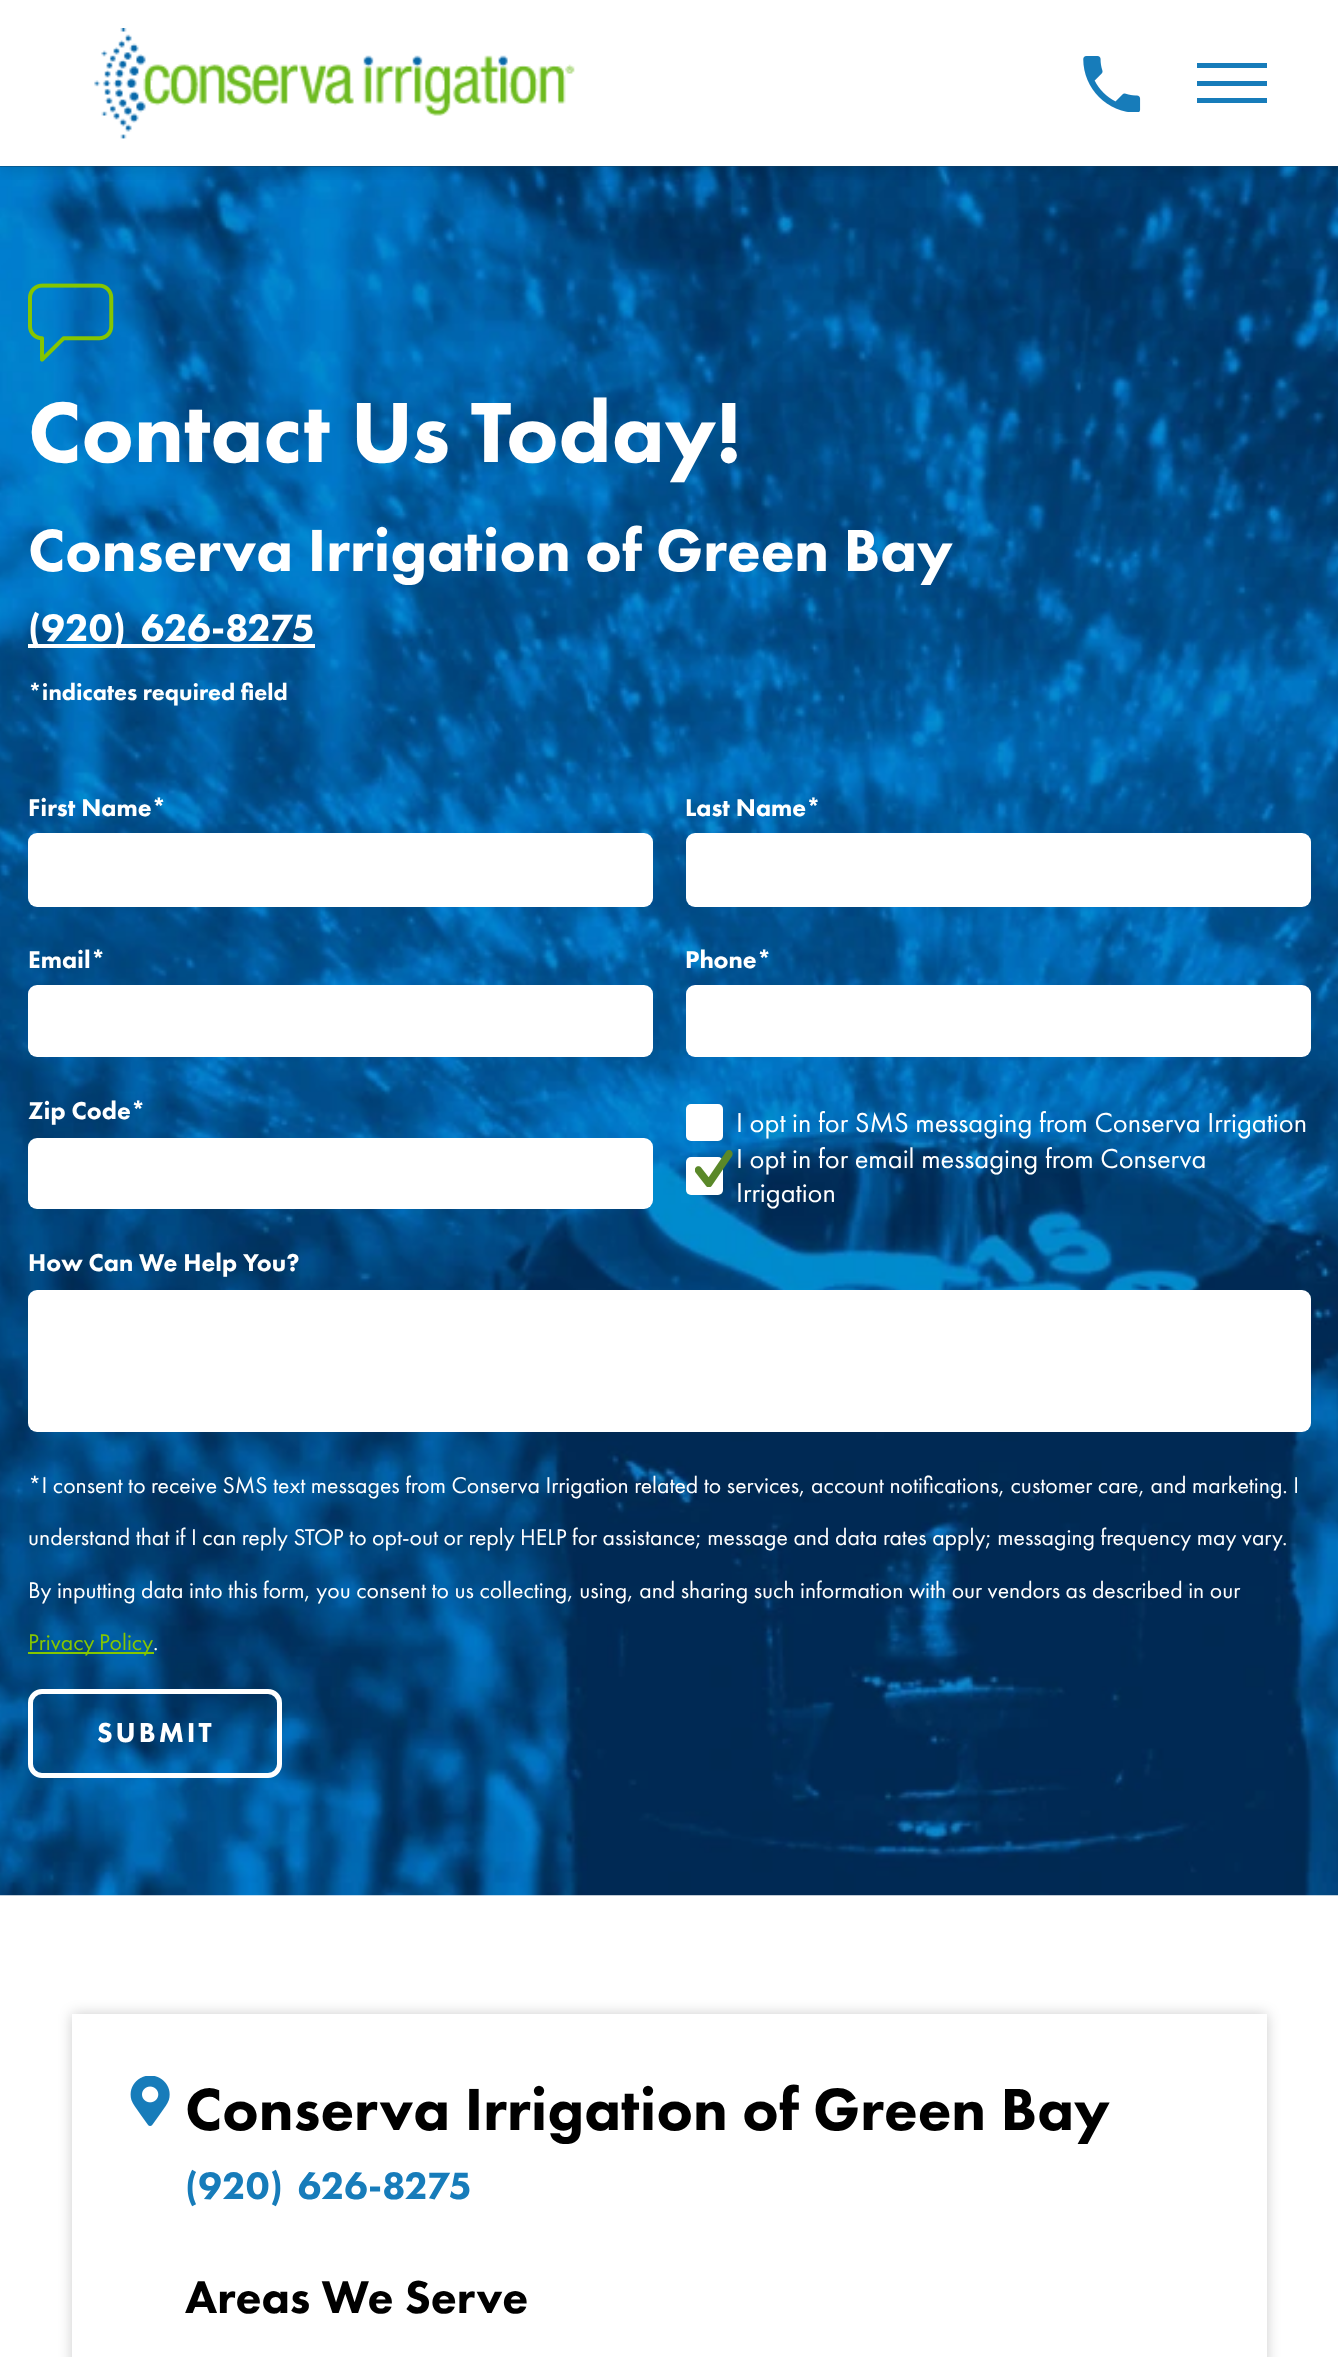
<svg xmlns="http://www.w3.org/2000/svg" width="1338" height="2357">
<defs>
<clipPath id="clip1"><rect x="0" y="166" width="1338" height="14"/></clipPath>
</defs>
<rect width="100%" height="100%" fill="#fff"/>
<rect y="166" width="1338" height="1" fill="#114667"/>
<image x="0" y="166" width="1338" height="1730" href="media/3.png"/>
<g clip-path="url(#clip1)">
<rect width="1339" height="166" fill="#00000033" filter="blur(11px)"/>
</g>
<image x="94" y="28" width="481" height="111" href="media/1.png"/>
<image x="1083" y="56" width="58" height="56" href="media/2.png"/>
<rect x="1197" y="63" width="70" height="5" fill="#177cba"/>
<rect x="1197" y="81" width="70" height="5" fill="#177cba"/>
<rect x="1197" y="98" width="70" height="5" fill="#177cba"/>
<image x="28" y="283" width="86" height="79" href="media/4.png"/>
<text x="28" y="462" style="font-family:Futura PT;font-size:88.5px;font-weight:900;fill:#fff">Contact Us Today!</text>
<text x="28" y="571" style="font-family:Futura PT;font-size:61.6px;font-weight:900;fill:#fff">Conserva Irrigation of Green Bay</text>
<rect x="28" y="644" width="287" height="4" fill="#fff"/>
<text x="28" y="641" word-spacing="6" style="font-family:Futura PT;font-size:39.5px;font-weight:900;fill:#fff">(920) 626-8275</text>
<text x="28" y="700" style="font-family:Futura PT;font-size:23.68px;font-weight:900;fill:#fff">*indicates required field</text>
<text x="28" y="816" style="font-family:Futura PT;font-size:25.25px;font-weight:900;fill:#fff">First Name*</text>
<rect x="28" y="833" width="625" height="74" rx="9" fill="#fff"/>
<text x="685" y="816" style="font-family:Futura PT;font-size:25.25px;font-weight:900;fill:#fff">Last Name*</text>
<rect x="686" y="833" width="625" height="74" rx="9" fill="#fff"/>
<text x="28" y="968" style="font-family:Futura PT;font-size:25.25px;font-weight:900;fill:#fff">Email*</text>
<rect x="28" y="985" width="625" height="72" rx="9" fill="#fff"/>
<text x="685" y="968" style="font-family:Futura PT;font-size:25.25px;font-weight:900;fill:#fff">Phone*</text>
<rect x="686" y="985" width="625" height="72" rx="9" fill="#fff"/>
<text x="28" y="1119" style="font-family:Futura PT;font-size:25.25px;font-weight:900;fill:#fff">Zip Code*</text>
<rect x="28" y="1138" width="625" height="71" rx="9" fill="#fff"/>
<rect x="686" y="1104" width="37" height="37" rx="5" fill="#fff"/>
<text x="736" y="1132" style="font-family:Futura PT;font-size:28.4px;fill:#fff">I opt in for SMS messaging from Conserva Irrigation</text>
<rect x="686" y="1157" width="37" height="38" rx="5" fill="#fff"/>
<image x="695" y="1150" width="38" height="37" href="media/5.png"/>
<text x="736" y="1168" style="font-family:Futura PT;font-size:28.4px;fill:#fff">I opt in for email messaging from Conserva</text>
<text x="736" y="1202" style="font-family:Futura PT;font-size:28.4px;fill:#fff">Irrigation</text>
<text x="28" y="1271" style="font-family:Futura PT;font-size:25.25px;font-weight:900;fill:#fff">How Can We Help You?</text>
<rect x="28" y="1290" width="1283" height="142" rx="9" fill="#fff"/>
<text x="28" y="1493" style="font-family:Futura PT;font-size:23.68px;fill:#fff">*I consent to receive SMS text messages from Conserva Irrigation related to services, account notifications, customer care, and marketing. I</text>
<text x="28" y="1545" style="font-family:Futura PT;font-size:23.68px;fill:#fff">understand that if I can reply STOP to opt-out or reply HELP for assistance; message and data rates apply; messaging frequency may vary.</text>
<text x="28" y="1598" style="font-family:Futura PT;font-size:23.68px;fill:#fff">By inputting data into this form, you consent to us collecting, using, and sharing such information with our vendors as described in our</text>
<rect x="28" y="1652" width="126" height="2" fill="#85c600"/>
<text x="28" y="1650" word-spacing="-1" style="font-family:Futura PT;font-size:23.68px;fill:#85c600">Privacy Policy</text>
<text x="153" y="1650" style="font-family:Futura PT;font-size:23.68px;fill:#fff">.</text>
<rect x="30.5" y="1691.5" width="249" height="84" rx="11.5" fill="none" stroke="#fff" stroke-width="5"/>
<text x="97" y="1742" style="font-family:Futura PT;font-size:28.4px;font-weight:900;letter-spacing:3px;fill:#fff">SUBMIT</text>
<rect x="72" y="2014" width="1195" height="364" fill="#00000033" filter="blur(7px)"/>
<rect x="72" y="2014" width="1195" height="343" fill="#fff"/>
<image x="130" y="2076" width="40" height="50" href="media/6.png"/>
<text x="185" y="2130" style="font-family:Futura PT;font-size:61.6px;font-weight:900;fill:#000">Conserva Irrigation of Green Bay</text>
<text x="185" y="2199" word-spacing="6" style="font-family:Futura PT;font-size:39.5px;font-weight:900;fill:#177cba">(920) 626-8275</text>
<text x="185" y="2313" style="font-family:Futura PT;font-size:47.5px;font-weight:900;fill:#000">Areas We Serve</text>
</svg>
